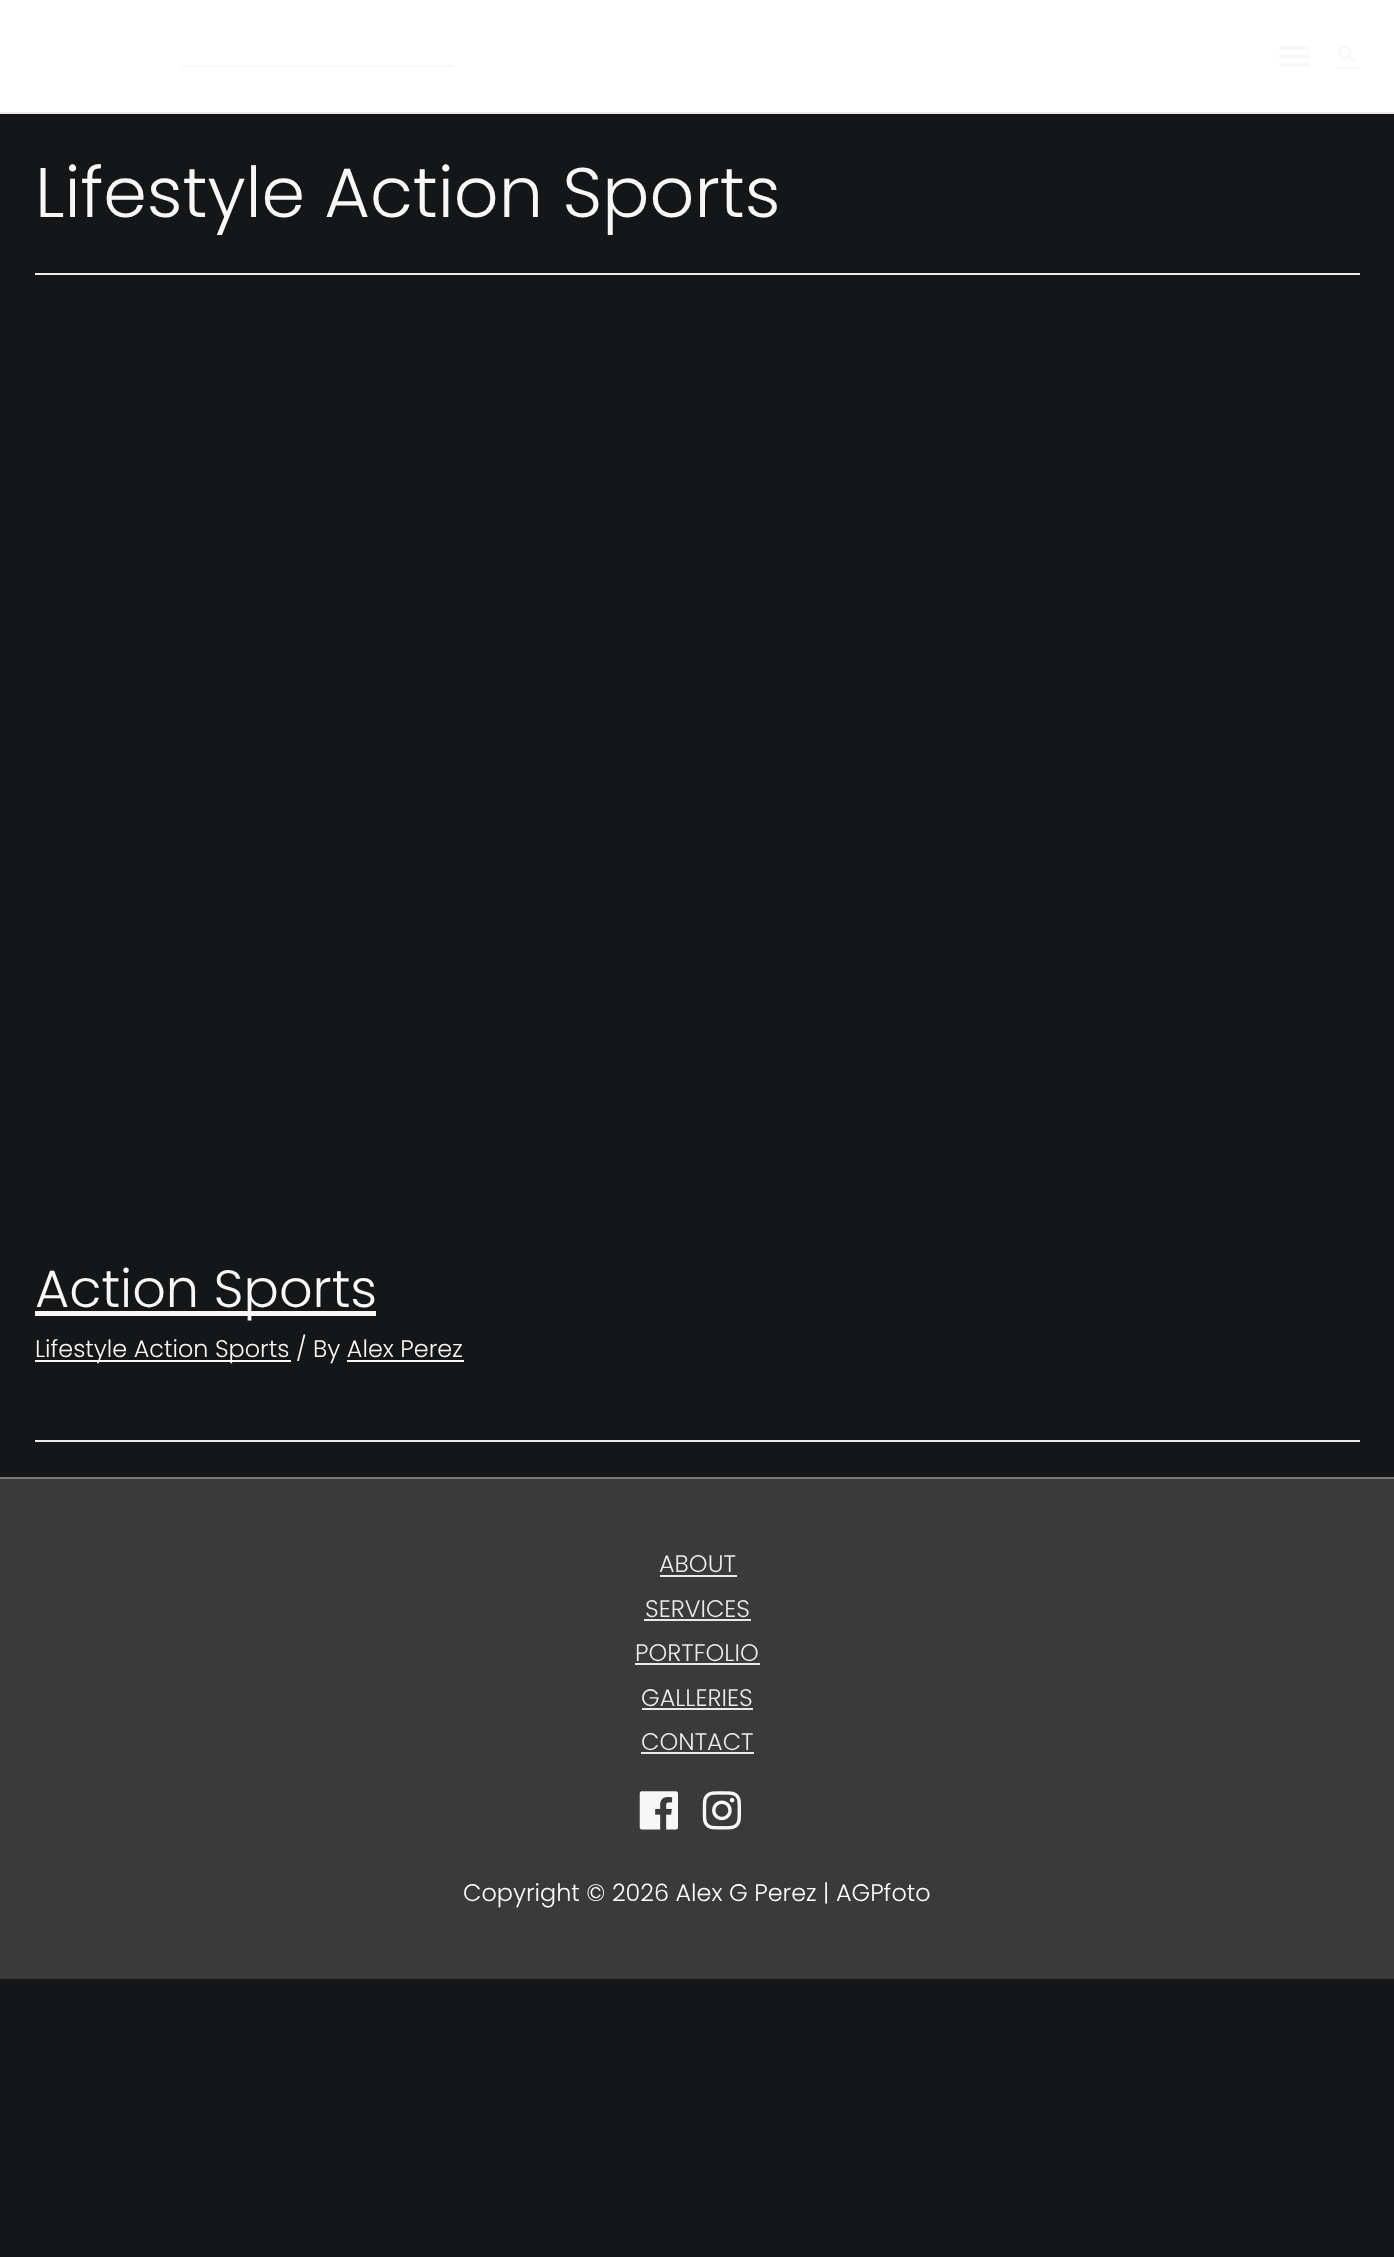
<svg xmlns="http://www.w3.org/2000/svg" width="1394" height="2257">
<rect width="100%" height="100%" fill="#141618"/>
<rect width="1394" height="112" fill="#fff"/>
<rect y="112" width="1394" height="2" fill="#eaeaea"/>
<rect x="182" y="65" width="271" height="2" fill="#f7f7f7"/>
<image x="1279" y="46" width="31" height="21" href="media/1.png"/>
<image x="1338" y="46" width="17" height="17" href="media/2.png"/>
<rect x="1335" y="67" width="25" height="2" fill="#f7f7f7"/>
<rect x="35" y="273" width="1325" height="2" fill="#eee"/>
<text x="35" y="217" style="font-family:Poppins;font-size:70px;font-weight:300;fill:#f7f7f7">Lifestyle Action Sports</text>
<rect x="35" y="1440" width="1325" height="2" fill="#eee"/>
<rect x="35" y="1311" width="341" height="5" fill="#f7f7f7"/>
<text x="35" y="1307" style="font-family:Poppins;font-size:52.5px;font-weight:300;fill:#f7f7f7">Action Sports</text>
<rect x="35" y="1360" width="256" height="2" fill="#f7f7f7"/>
<text x="35" y="1357" style="font-family:Poppins;font-size:23.9px;font-weight:300;fill:#f7f7f7">Lifestyle Action Sports / By Alex Perez</text>
<rect x="347" y="1360" width="117" height="2" fill="#f7f7f7"/>
<rect y="1477" width="1394" height="2" fill="#7a7a7a"/>
<rect y="1479" width="1394" height="500" fill="#3a3a3a"/>
<text x="659" y="1572" style="font-family:Poppins;font-size:23.9px;font-weight:300;fill:#eaeaea">ABOUT</text>
<rect x="660" y="1575" width="77" height="2" fill="#eaeaea"/>
<text x="645" y="1617" style="font-family:Poppins;font-size:23.9px;font-weight:300;fill:#eaeaea">SERVICES</text>
<rect x="644" y="1619" width="107" height="2" fill="#eaeaea"/>
<text x="635" y="1661" style="font-family:Poppins;font-size:23.9px;font-weight:300;fill:#eaeaea">PORTFOLIO</text>
<rect x="635" y="1663" width="125" height="2" fill="#eaeaea"/>
<text x="641" y="1706" style="font-family:Poppins;font-size:23.9px;font-weight:300;fill:#eaeaea">GALLERIES</text>
<rect x="642" y="1708" width="111" height="2" fill="#eaeaea"/>
<text x="641" y="1750" style="font-family:Poppins;font-size:23.9px;font-weight:300;fill:#eaeaea">CONTACT</text>
<rect x="641" y="1752" width="113" height="2" fill="#eaeaea"/>
<image x="639" y="1791" width="39" height="39" href="media/3.png"/>
<image x="702" y="1791" width="40" height="39" href="media/4.png"/>
<text x="463" y="1901" style="font-family:Poppins;font-size:23.9px;font-weight:300;fill:#fff">Copyright © 2026 Alex G Perez | AGPfoto</text>
</svg>
